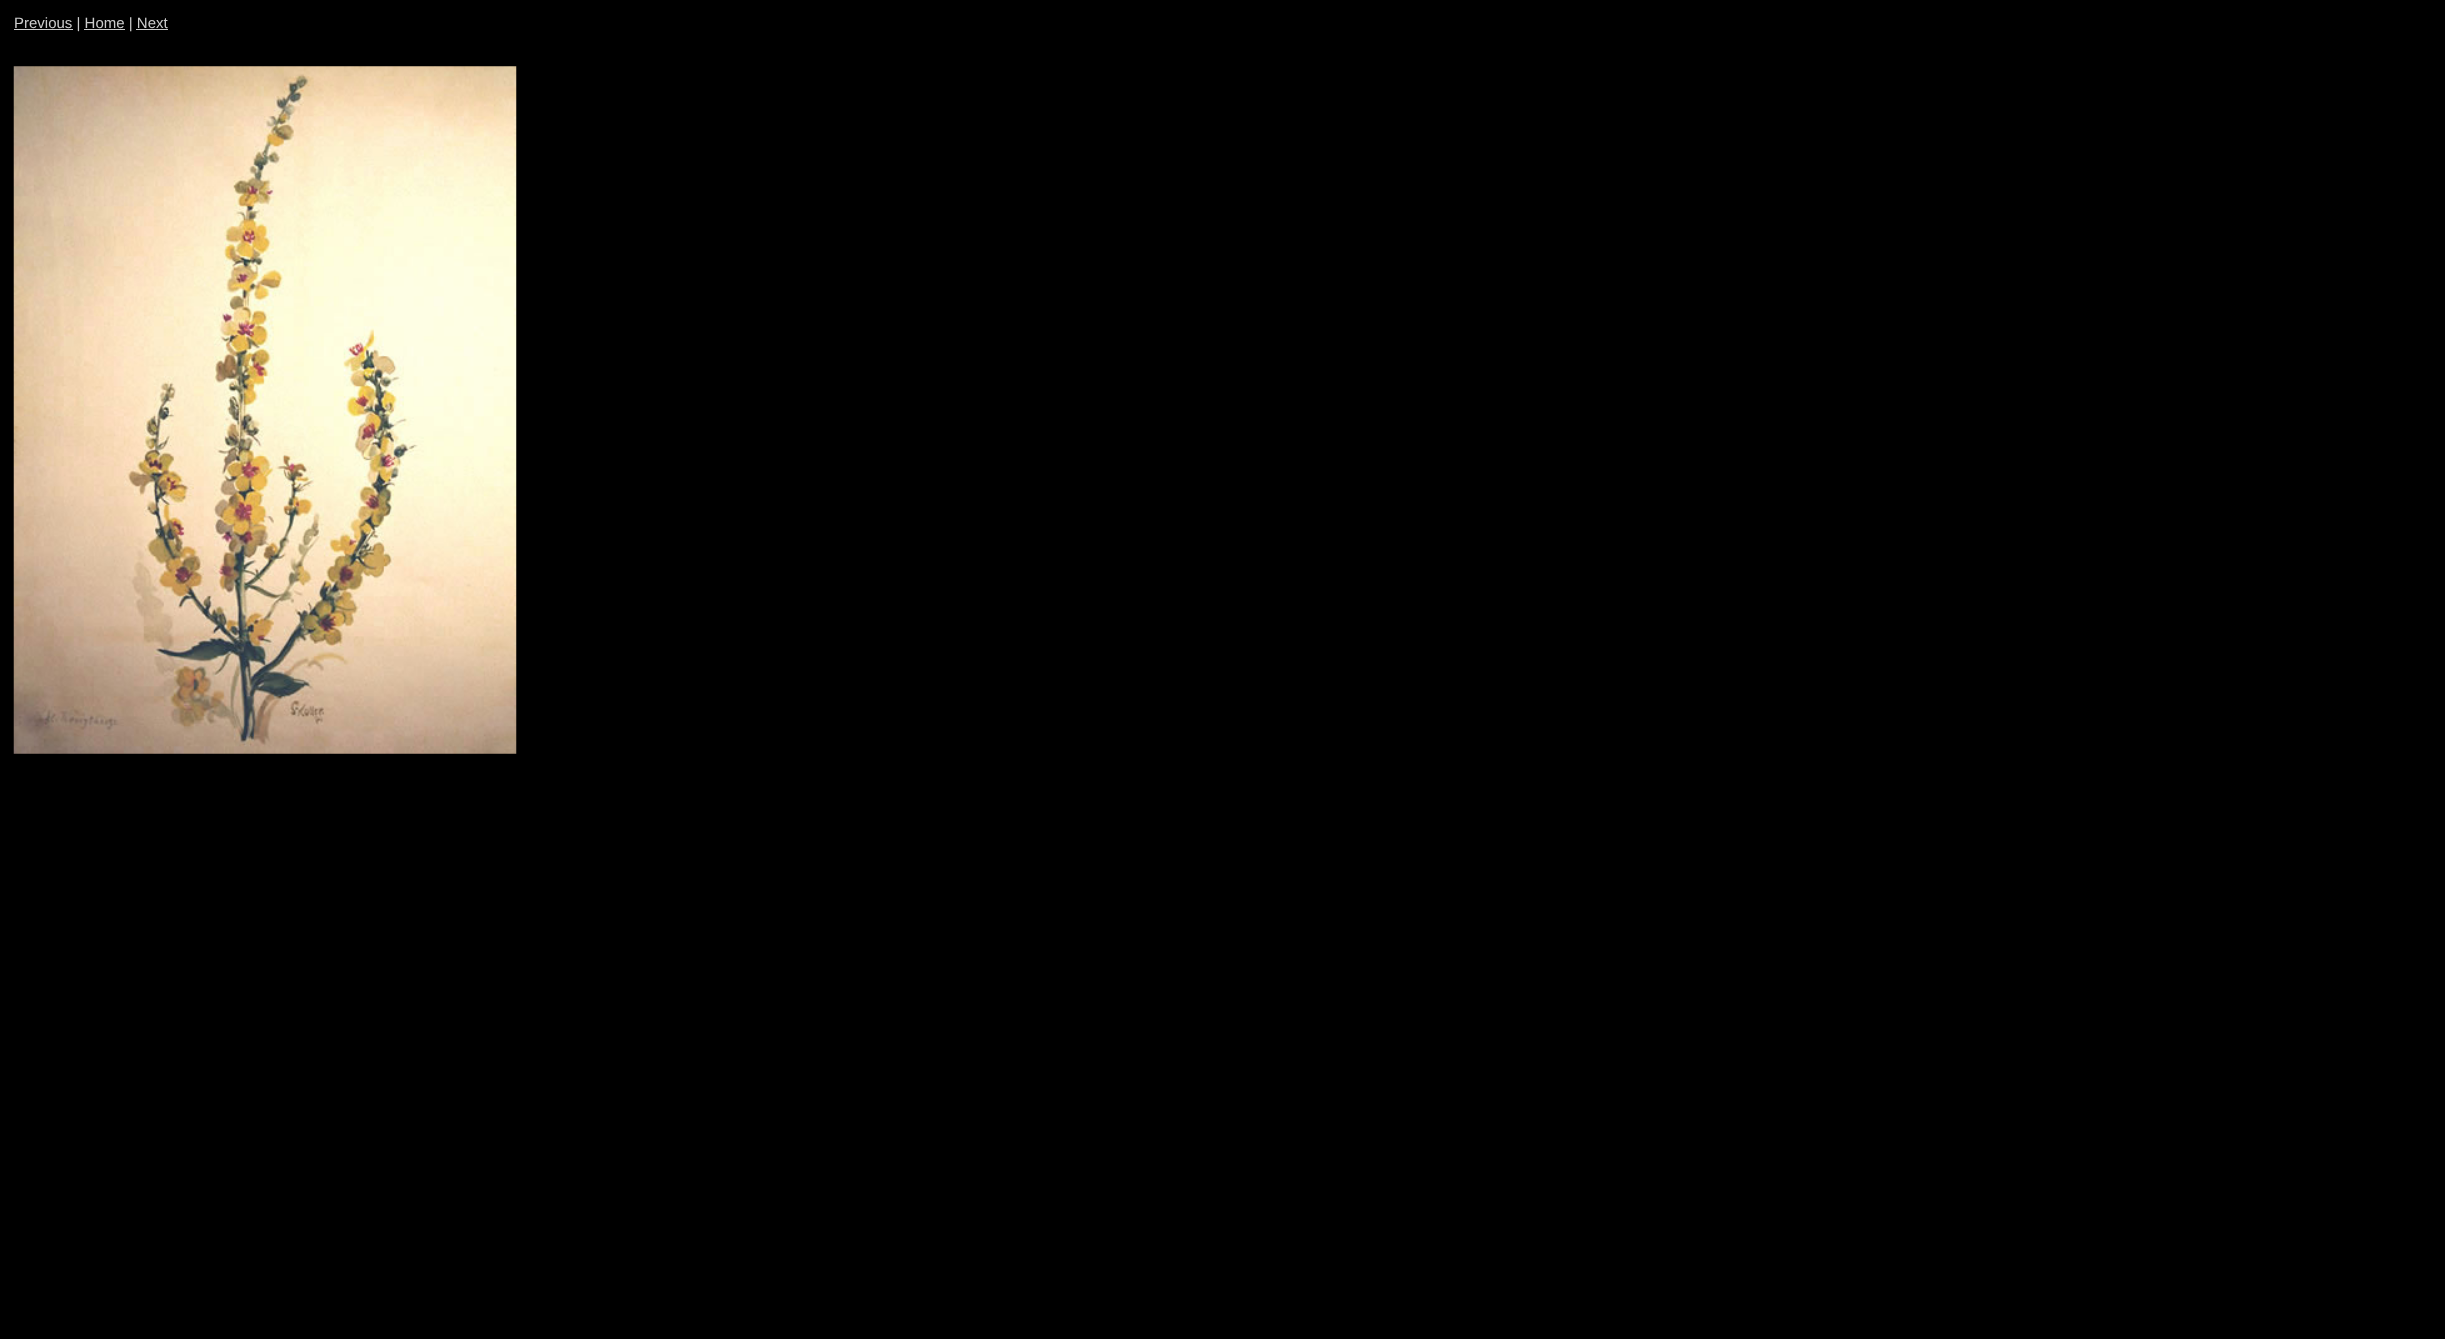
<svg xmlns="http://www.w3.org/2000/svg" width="2445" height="1339">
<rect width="100%" height="100%" fill="#000"/>
<rect x="14" y="29" width="59" height="1" fill="#ccc"/>
<text x="14" y="28" style="font-family:Liberation Sans;font-size:15px;fill:#ccc">Previous | Home | Next</text>
<rect x="84" y="29" width="41" height="1" fill="#ccc"/>
<rect x="136" y="29" width="32" height="1" fill="#ccc"/>
<image x="13" y="66" width="504" height="688" href="media/1.png"/>
</svg>
